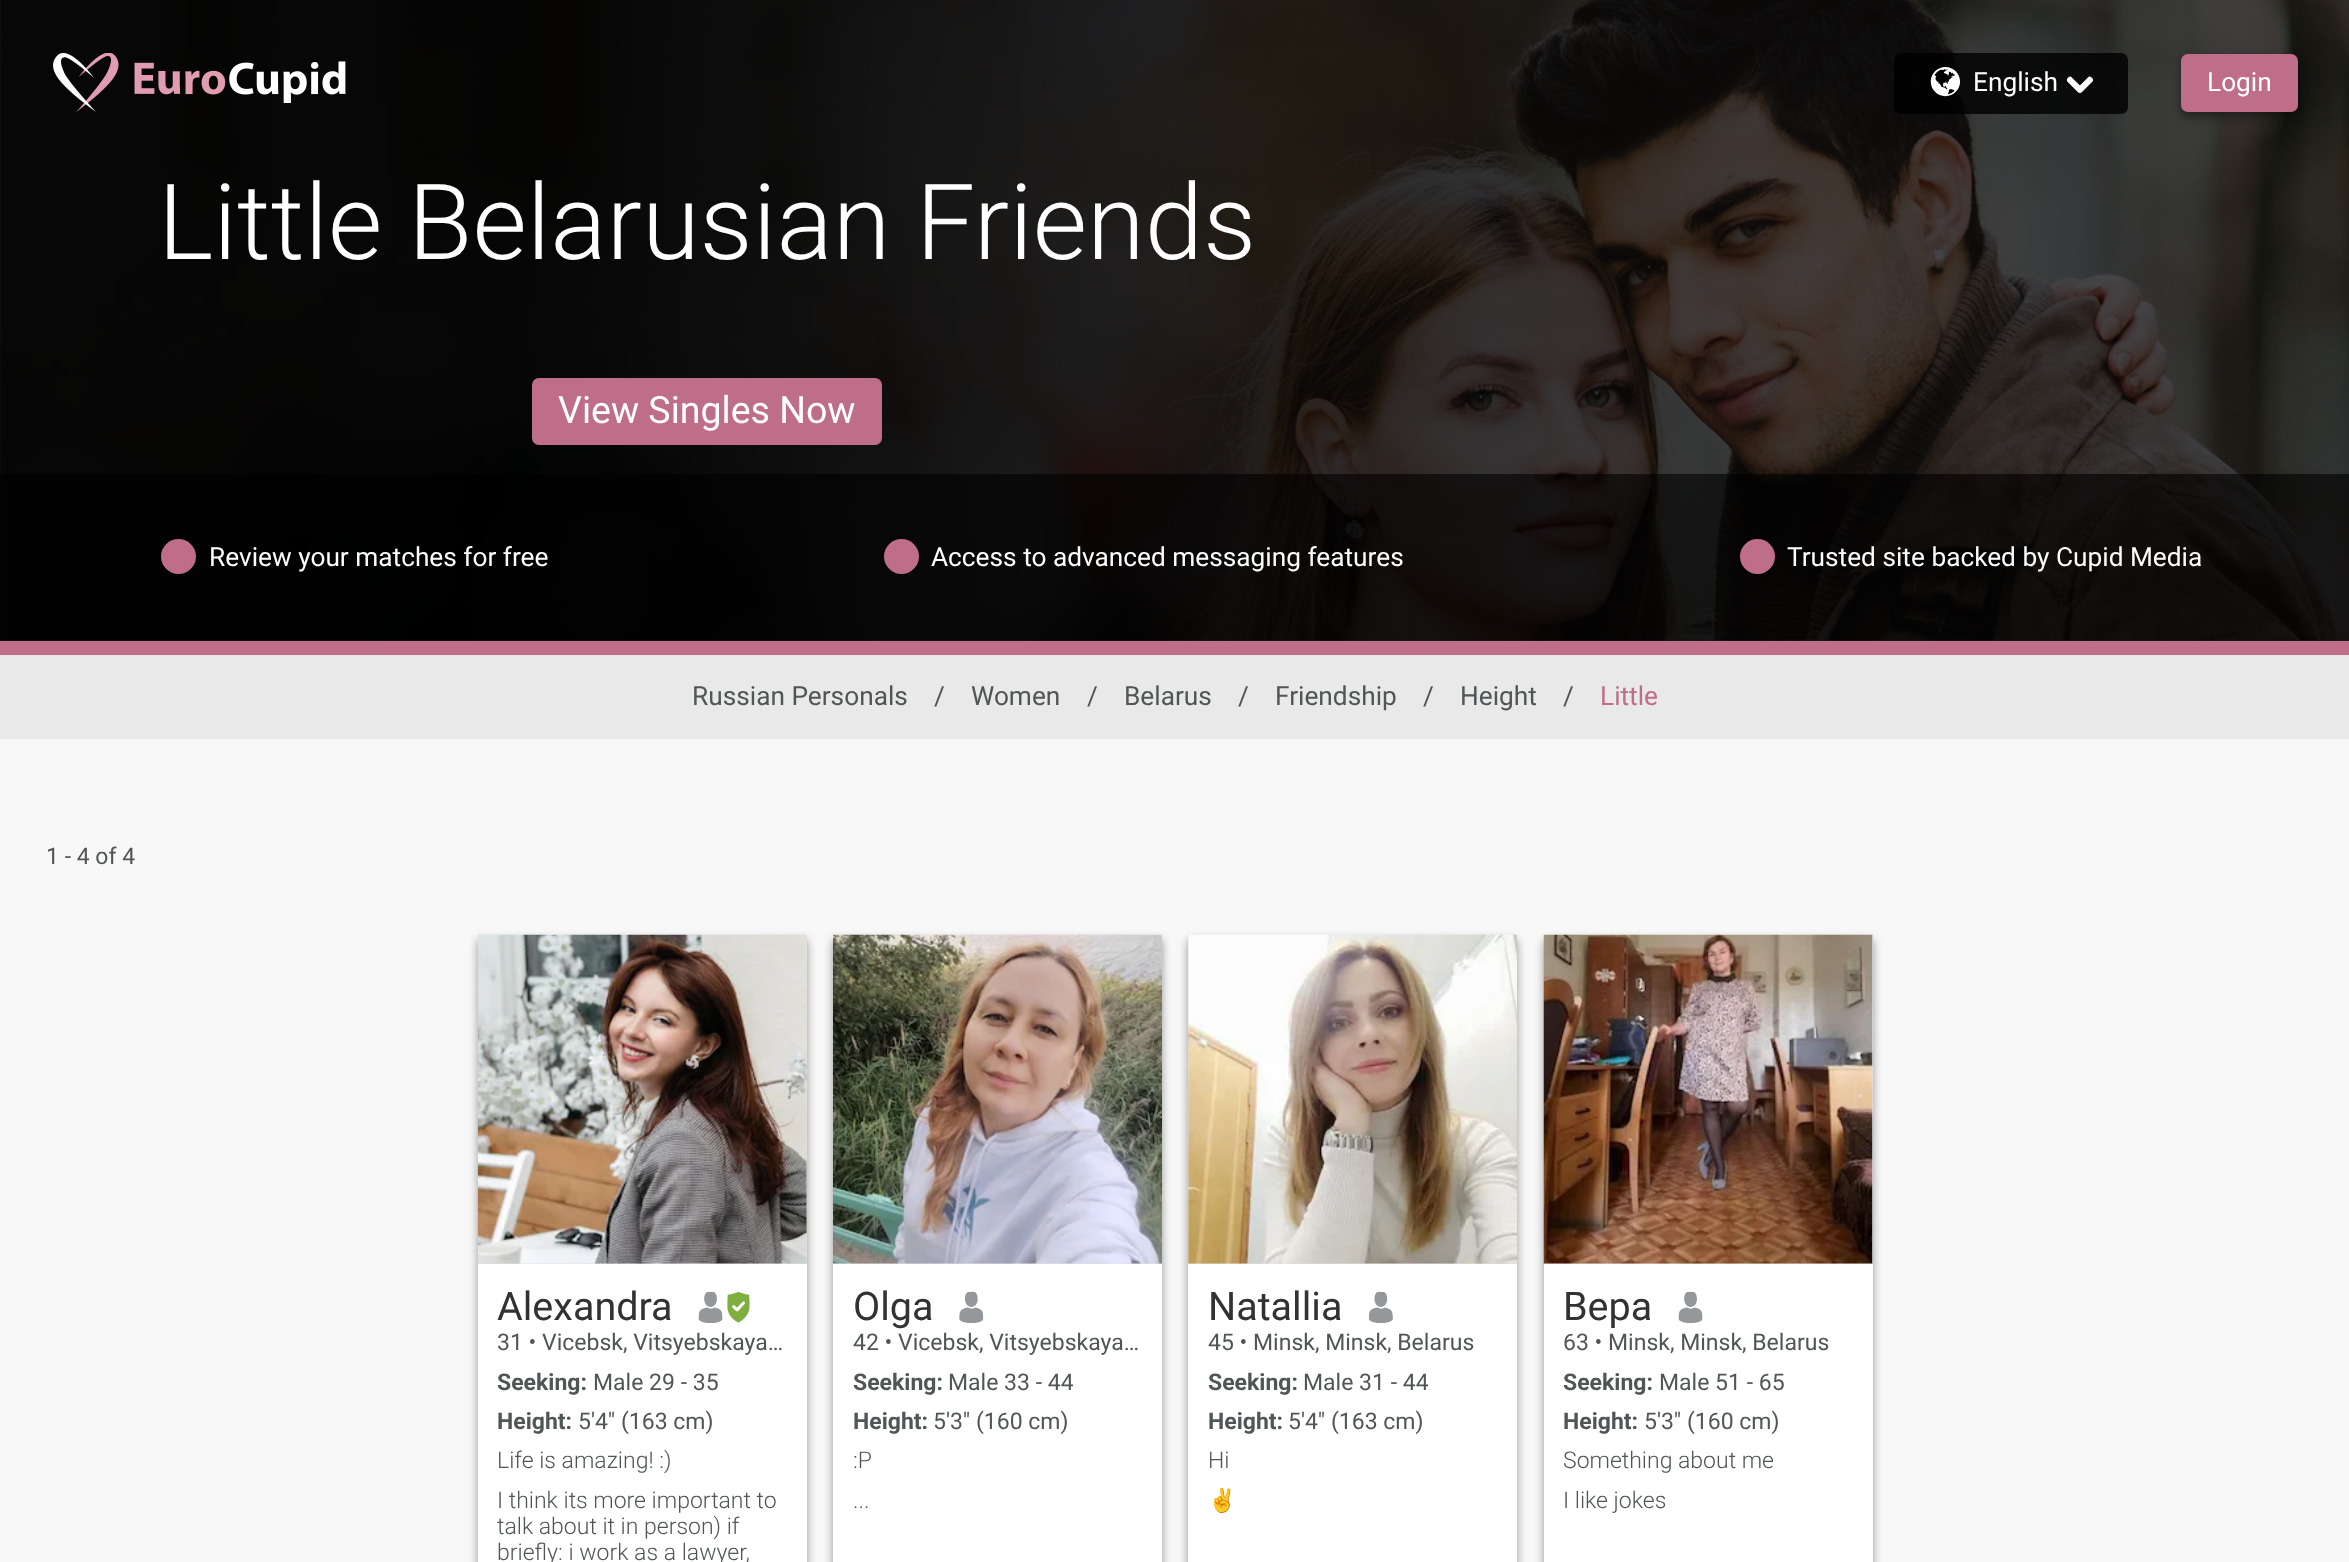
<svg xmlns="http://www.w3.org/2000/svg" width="2349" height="1562">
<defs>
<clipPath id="clip1"><rect x="1208" y="1488" width="290" height="26"/></clipPath>
</defs>
<rect width="100%" height="100%" fill="#f8f8f8"/>
<rect y="640" width="2349" height="1" fill="#4d4d4d"/>
<image x="0" y="0" width="2349" height="641" href="media/5.png"/>
<image x="53" y="53" width="66" height="59" href="media/1.png"/>
<image x="134" y="61" width="212" height="42" href="media/2.png"/>
<rect x="1894" y="53" width="234" height="61" rx="7" fill="#000000cc"/>
<image x="1930" y="67" width="31" height="30" href="media/3.png"/>
<text x="1973" y="91" style="font-family:Roboto;font-size:26.25px;fill:#fff">English</text>
<image x="2067" y="76" width="26" height="17" href="media/4.png"/>
<rect x="2181" y="60" width="117" height="57" rx="7" fill="#00000066" filter="blur(5px)"/>
<rect x="2181" y="54" width="117" height="58" rx="7" fill="#bf6e89"/>
<text x="2207" y="91" style="font-family:Roboto;font-size:26.25px;fill:#fff">Login</text>
<text x="158" y="259" style="font-family:Roboto;font-size:105px;font-weight:300;fill:#fff">Little Belarusian Friends</text>
<rect x="532" y="378" width="350" height="67" rx="7" fill="#bf6e89"/>
<text x="558" y="423" style="font-family:Roboto;font-size:37.5px;fill:#fff">View Singles Now</text>
<rect y="474" width="2349" height="167" fill="#00000099"/>
<circle cx="178.5" cy="556.5" r="17.5" fill="#bf6e89"/>
<text x="209" y="566" style="font-family:Roboto;font-size:26.25px;fill:#fff">Review your matches for free</text>
<circle cx="901.5" cy="556.5" r="17.5" fill="#bf6e89"/>
<text x="931" y="566" style="font-family:Roboto;font-size:26.25px;fill:#fff">Access to advanced messaging features</text>
<circle cx="1757.5" cy="556.5" r="17.5" fill="#bf6e89"/>
<text x="1787" y="566" style="font-family:Roboto;font-size:26.25px;fill:#fff">Trusted site backed by Cupid Media</text>
<rect y="641" width="2349" height="14" fill="#bf6e89"/>
<rect y="655" width="2349" height="84" fill="#e9e9e9"/>
<text x="692" y="705" style="font-family:Roboto;font-size:26.25px;fill:#505656">Russian Personals</text>
<text x="934" y="705" style="font-family:Roboto;font-size:26.25px;fill:#505656">/</text>
<text x="971" y="705" style="font-family:Roboto;font-size:26.25px;fill:#505656">Women</text>
<text x="1087" y="705" style="font-family:Roboto;font-size:26.25px;fill:#505656">/</text>
<text x="1124" y="705" style="font-family:Roboto;font-size:26.25px;fill:#505656">Belarus</text>
<text x="1238" y="705" style="font-family:Roboto;font-size:26.25px;fill:#505656">/</text>
<text x="1275" y="705" style="font-family:Roboto;font-size:26.25px;fill:#505656">Friendship</text>
<text x="1423" y="705" style="font-family:Roboto;font-size:26.25px;fill:#505656">/</text>
<text x="1460" y="705" style="font-family:Roboto;font-size:26.25px;fill:#505656">Height</text>
<text x="1563" y="705" style="font-family:Roboto;font-size:26.25px;fill:#505656">/</text>
<text x="1600" y="705" style="font-family:Roboto;font-size:26.25px;fill:#bf6e89">Little</text>
<text x="46" y="864" style="font-family:Roboto;font-size:23px;fill:#505656">1 - 4 of 4</text>
<rect x="478" y="940" width="329" height="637" fill="#00000066" filter="blur(5px)"/>
<rect x="478" y="1264" width="329" height="298" fill="#fff"/>
<rect x="478" y="935" width="329" height="329" fill="#e0e0e0"/>
<image x="477" y="934" width="330" height="330" href="media/6.png"/>
<text x="497" y="1320" style="font-family:Roboto;font-size:39.5px;fill:#323232">Alexandra</text>
<image x="698" y="1291" width="25" height="32" href="media/7.png"/>
<image x="727" y="1292" width="23" height="31" href="media/8.png"/>
<text x="497" y="1350" style="font-family:Roboto;font-size:23px;fill:#505656">31 • Vicebsk, Vitsyebskaya…</text>
<text x="497" y="1390" style="font-family:Roboto;font-size:23px;font-weight:bold;fill:#505656">Seeking:</text>
<text x="593" y="1390" style="font-family:Roboto;font-size:23px;fill:#505656">Male 29 - 35</text>
<text x="497" y="1429" style="font-family:Roboto;font-size:23px;font-weight:bold;fill:#505656">Height:</text>
<text x="578" y="1429" style="font-family:Roboto;font-size:23px;fill:#505656">5'4" (163 cm)</text>
<text x="497" y="1468" style="font-family:Roboto;font-size:23px;font-weight:300;fill:#505656">Life is amazing! :)</text>
<text x="497" y="1508" style="font-family:Roboto;font-size:23px;font-weight:300;fill:#505656">I think its more important to</text>
<text x="497" y="1534" style="font-family:Roboto;font-size:23px;font-weight:300;fill:#505656">talk about it in person) if</text>
<text x="497" y="1560" style="font-family:Roboto;font-size:23px;font-weight:300;fill:#505656">briefly: i work as a lawyer,</text>
<rect x="833" y="940" width="329" height="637" fill="#00000066" filter="blur(5px)"/>
<rect x="833" y="1264" width="329" height="298" fill="#fff"/>
<rect x="833" y="1263" width="329" height="1" fill="#e0e0e0"/>
<image x="833" y="934" width="329" height="330" href="media/9.png"/>
<text x="853" y="1320" style="font-family:Roboto;font-size:39.5px;fill:#323232">Olga</text>
<image x="959" y="1291" width="25" height="32" href="media/10.png"/>
<text x="853" y="1350" style="font-family:Roboto;font-size:23px;fill:#505656">42 • Vicebsk, Vitsyebskaya…</text>
<text x="853" y="1390" style="font-family:Roboto;font-size:23px;font-weight:bold;fill:#505656">Seeking:</text>
<text x="948" y="1390" style="font-family:Roboto;font-size:23px;fill:#505656">Male 33 - 44</text>
<text x="853" y="1429" style="font-family:Roboto;font-size:23px;font-weight:bold;fill:#505656">Height:</text>
<text x="933" y="1429" style="font-family:Roboto;font-size:23px;fill:#505656">5'3" (160 cm)</text>
<text x="853" y="1468" style="font-family:Roboto;font-size:23px;font-weight:300;fill:#505656">:P</text>
<text x="853" y="1508" style="font-family:Roboto;font-size:23px;font-weight:300;fill:#505656">...</text>
<rect x="1188" y="940" width="329" height="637" fill="#00000066" filter="blur(5px)"/>
<rect x="1188" y="1264" width="329" height="298" fill="#fff"/>
<rect x="1188" y="935" width="329" height="329" fill="#e0e0e0"/>
<image x="1188" y="934" width="329" height="330" href="media/11.png"/>
<text x="1208" y="1320" style="font-family:Roboto;font-size:39.5px;fill:#323232">Natallia</text>
<image x="1368" y="1291" width="25" height="32" href="media/12.png"/>
<text x="1208" y="1350" style="font-family:Roboto;font-size:23px;fill:#505656">45 • Minsk, Minsk, Belarus</text>
<text x="1208" y="1390" style="font-family:Roboto;font-size:23px;font-weight:bold;fill:#505656">Seeking:</text>
<text x="1303" y="1390" style="font-family:Roboto;font-size:23px;fill:#505656">Male 31 - 44</text>
<text x="1208" y="1429" style="font-family:Roboto;font-size:23px;font-weight:bold;fill:#505656">Height:</text>
<text x="1288" y="1429" style="font-family:Roboto;font-size:23px;fill:#505656">5'4" (163 cm)</text>
<text x="1208" y="1468" style="font-family:Roboto;font-size:23px;font-weight:300;fill:#505656">Hi</text>
<g clip-path="url(#clip1)">
<text x="1208" y="1508" style="font-family:Noto Color Emoji;font-size:23px;fill:#505656">✌️</text>
</g>
<rect x="1544" y="940" width="329" height="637" fill="#00000066" filter="blur(5px)"/>
<rect x="1544" y="1264" width="329" height="298" fill="#fff"/>
<rect x="1544" y="935" width="329" height="329" fill="#e0e0e0"/>
<image x="1543" y="934" width="330" height="330" href="media/13.png"/>
<text x="1563" y="1320" style="font-family:Roboto;font-size:39.5px;fill:#323232">Вера</text>
<image x="1678" y="1291" width="25" height="32" href="media/7.png"/>
<text x="1563" y="1350" style="font-family:Roboto;font-size:23px;fill:#505656">63 • Minsk, Minsk, Belarus</text>
<text x="1563" y="1390" style="font-family:Roboto;font-size:23px;font-weight:bold;fill:#505656">Seeking:</text>
<text x="1659" y="1390" style="font-family:Roboto;font-size:23px;fill:#505656">Male 51 - 65</text>
<text x="1563" y="1429" style="font-family:Roboto;font-size:23px;font-weight:bold;fill:#505656">Height:</text>
<text x="1644" y="1429" style="font-family:Roboto;font-size:23px;fill:#505656">5'3" (160 cm)</text>
<text x="1563" y="1468" style="font-family:Roboto;font-size:23px;font-weight:300;fill:#505656">Something about me</text>
<text x="1563" y="1508" style="font-family:Roboto;font-size:23px;font-weight:300;fill:#505656">I like jokes</text>
</svg>
